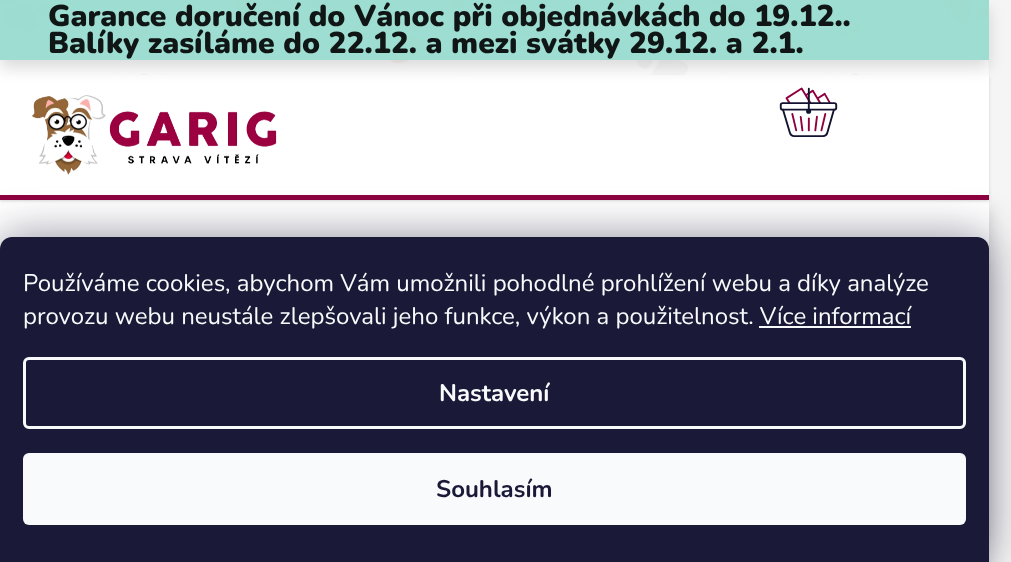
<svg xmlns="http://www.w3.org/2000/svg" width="1011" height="562">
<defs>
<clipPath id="clip1"><path d="M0 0h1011v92h-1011zm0 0h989v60h-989z" clip-rule="evenodd"/></clipPath>
</defs>
<rect width="100%" height="100%" fill="#f5f5f5"/>
<image x="0" y="0" width="989" height="75" href="media/1.png"/>
<rect y="207" width="989" height="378" fill="#00000026" filter="blur(7.5px)"/>
<rect y="200" width="989" height="49" fill="#fff"/>
<rect y="77" width="989" height="124" fill="#00000029" filter="blur(1.5px)"/>
<rect y="75" width="989" height="120" fill="#fff"/>
<image x="779" y="87" width="59" height="50" href="media/3.png"/>
<g clip-path="url(#clip1)">
<rect y="8" width="989" height="60" fill="#00000024" filter="blur(7.5px)"/>
</g>
<rect width="989" height="60" fill="#94d9cce6"/>
<text x="48" y="26" style="font-family:Nunito;font-size:30px;font-weight:900;fill:#101615">Garance doručení do Vánoc při objednávkách do 19.12..</text>
<text x="48" y="53" style="font-family:Nunito;font-size:30px;font-weight:900;fill:#101615">Balíky zasíláme do 22.12. a mezi svátky 29.12. a 2.1.</text>
<rect y="195" width="989" height="5" fill="#8d033f"/>
<image x="32" y="95" width="245" height="80" href="media/2.png"/>
<rect y="237" width="989" height="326" rx="12" fill="#1b193980" filter="blur(22.5px)"/>
<path d="M12 237h965c6.5 0 12 5.5 12 12v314h-989v-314c0-6.5 5.5-12 12-12z" fill="#1a1937"/>
<text x="23" y="291" style="font-family:Nunito;font-size:24px;fill:#f8fafb">Používáme cookies, abychom Vám umožnili pohodlné prohlížení webu a díky analýze</text>
<text x="23" y="324" style="font-family:Nunito;font-size:24px;fill:#f8fafb">provozu webu neustále zlepšovali jeho funkce, výkon a použitelnost. Více informací</text>
<rect x="759" y="326" width="152" height="2" fill="#f8fafb"/>
<rect x="24.5" y="358.5" width="940" height="69" rx="4.5" fill="none" stroke="#f8fafb" stroke-width="3"/>
<text x="439" y="401" style="font-family:Nunito;font-size:24px;font-weight:bold;fill:#f8fafb">Nastavení</text>
<rect x="23" y="453" width="943" height="72" rx="6" fill="#f8fafb"/>
<text x="436" y="497" style="font-family:Nunito;font-size:24px;font-weight:bold;fill:#1a1937">Souhlasím</text>
</svg>
